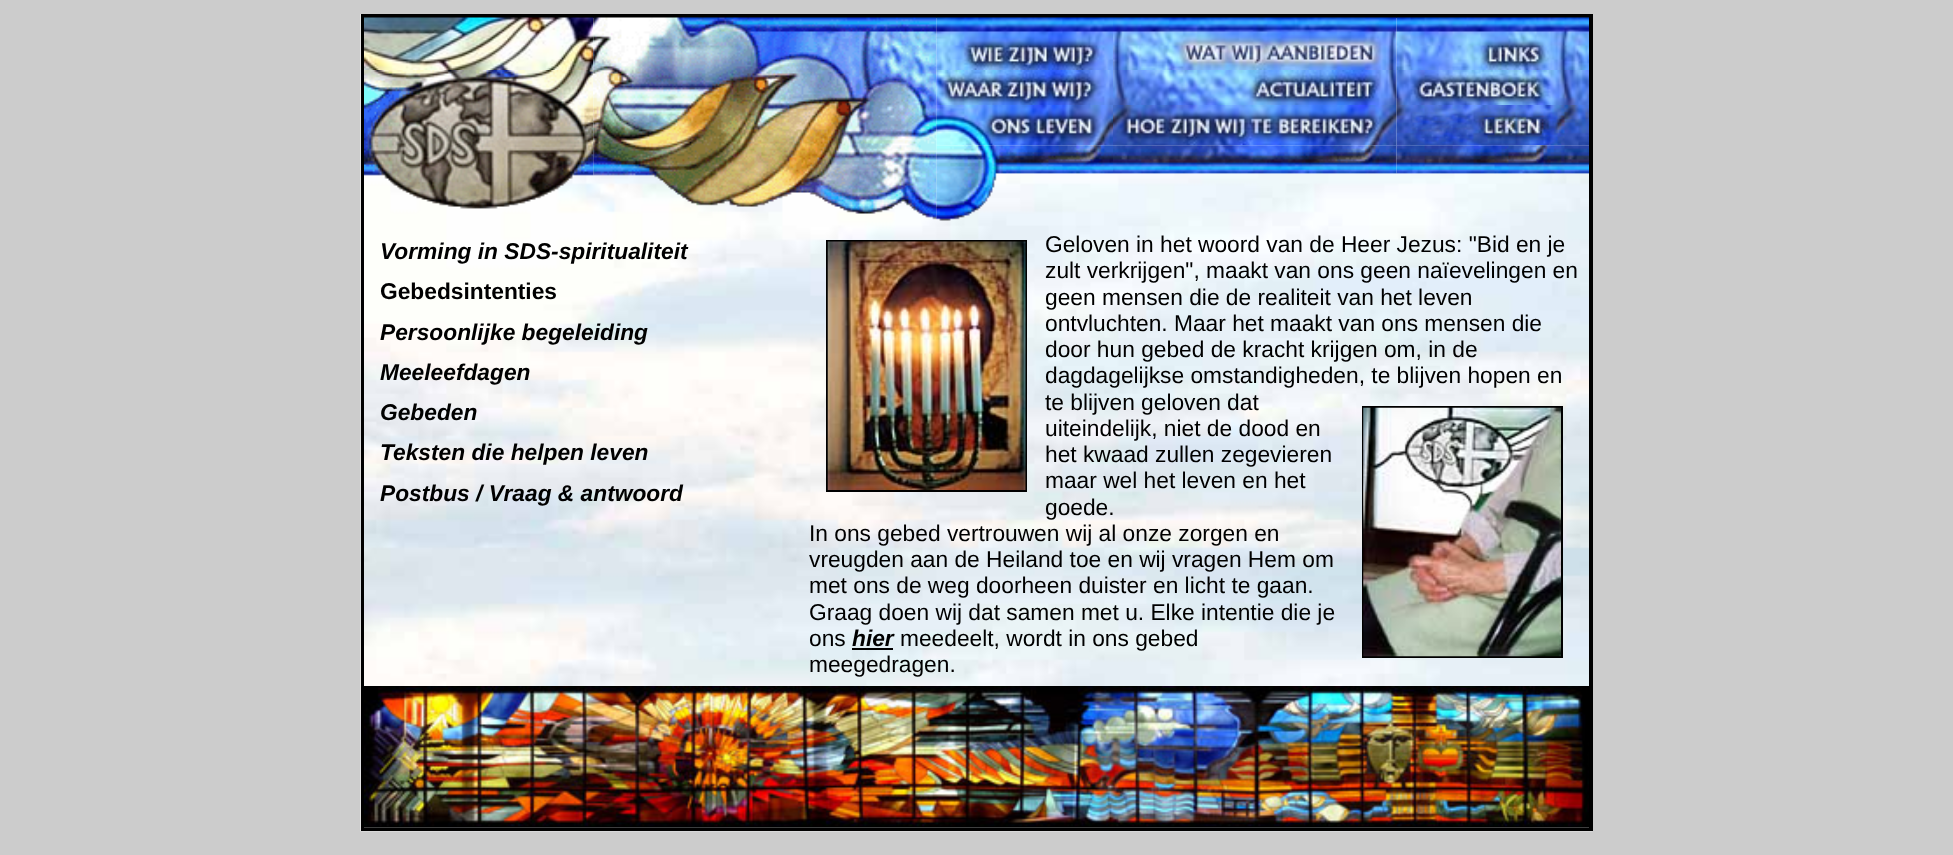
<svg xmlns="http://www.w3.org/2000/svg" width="1953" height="855">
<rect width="100%" height="100%" fill="#ccc"/>
<image x="360" y="14" width="1233" height="818" href="media/1.png"/>
<rect x="362" y="15" width="1230" height="815" fill="none" stroke="#000" stroke-width="2"/>
<rect x="363" y="17" width="1227" height="812" fill="none" stroke="#000" stroke-width="2"/>
<image x="364" y="17" width="230" height="53" href="media/2.png"/>
<image x="364" y="70" width="230" height="139" href="media/3.png"/>
<image x="593" y="17" width="344" height="203" href="media/4.png"/>
<image x="936" y="17" width="177" height="53" href="media/5.png"/>
<image x="936" y="70" width="177" height="35" href="media/6.png"/>
<image x="936" y="105" width="177" height="41" href="media/7.png"/>
<image x="936" y="145" width="177" height="76" href="media/8.png"/>
<image x="1113" y="17" width="284" height="53" href="media/9.png"/>
<image x="1113" y="70" width="284" height="35" href="media/10.png"/>
<image x="1113" y="105" width="284" height="41" href="media/11.png"/>
<image x="1113" y="145" width="284" height="29" href="media/12.png"/>
<image x="1396" y="17" width="193" height="53" href="media/13.png"/>
<image x="1396" y="70" width="193" height="35" href="media/14.png"/>
<image x="1396" y="105" width="193" height="41" href="media/15.png"/>
<image x="1396" y="145" width="193" height="29" href="media/16.png"/>
<text x="380" y="259" style="font-family:Liberation Sans;font-size:22.75px;font-weight:bold;font-style:italic;fill:#000">Vorming in SDS-spiritualiteit</text>
<text x="380" y="299" style="font-family:Liberation Sans;font-size:22.75px;font-weight:bold;fill:#000">Gebedsintenties</text>
<text x="380" y="340" style="font-family:Liberation Sans;font-size:22.75px;font-weight:bold;font-style:italic;fill:#000">Persoonlijke begeleiding</text>
<text x="380" y="380" style="font-family:Liberation Sans;font-size:22.75px;font-weight:bold;font-style:italic;fill:#000">Meeleefdagen</text>
<text x="380" y="420" style="font-family:Liberation Sans;font-size:22.75px;font-weight:bold;font-style:italic;fill:#000">Gebeden</text>
<text x="380" y="460" style="font-family:Liberation Sans;font-size:22.75px;font-weight:bold;font-style:italic;fill:#000">Teksten die helpen leven</text>
<text x="380" y="501" style="font-family:Liberation Sans;font-size:22.75px;font-weight:bold;font-style:italic;fill:#000">Postbus / Vraag &amp; antwoord</text>
<rect x="827" y="241" width="199" height="250" fill="none" stroke="#000" stroke-width="2"/>
<image x="827" y="241" width="199" height="249" href="media/17.png"/>
<text x="1045" y="252" style="font-family:Liberation Sans;font-size:22.75px;fill:#000">Geloven in het woord van de Heer Jezus: "Bid en je</text>
<text x="1045" y="278" style="font-family:Liberation Sans;font-size:22.75px;fill:#000">zult verkrijgen", maakt van ons geen naïevelingen en</text>
<text x="1045" y="305" style="font-family:Liberation Sans;font-size:22.75px;fill:#000">geen mensen die de realiteit van het leven</text>
<text x="1045" y="331" style="font-family:Liberation Sans;font-size:22.75px;fill:#000">ontvluchten. Maar het maakt van ons mensen die</text>
<text x="1045" y="357" style="font-family:Liberation Sans;font-size:22.75px;fill:#000">door hun gebed de kracht krijgen om, in de</text>
<text x="1045" y="383" style="font-family:Liberation Sans;font-size:22.75px;fill:#000">dagdagelijkse omstandigheden, te blijven hopen en</text>
<text x="1045" y="410" style="font-family:Liberation Sans;font-size:22.75px;fill:#000">te blijven geloven dat</text>
<rect x="1363" y="407" width="199" height="250" fill="none" stroke="#000" stroke-width="2"/>
<image x="1363" y="407" width="198" height="250" href="media/18.png"/>
<text x="1045" y="436" style="font-family:Liberation Sans;font-size:22.75px;fill:#000">uiteindelijk, niet de dood en</text>
<text x="1045" y="462" style="font-family:Liberation Sans;font-size:22.75px;fill:#000">het kwaad zullen zegevieren</text>
<text x="1045" y="488" style="font-family:Liberation Sans;font-size:22.75px;fill:#000">maar wel het leven en het</text>
<text x="1045" y="515" style="font-family:Liberation Sans;font-size:22.75px;fill:#000">goede.</text>
<text x="809" y="541" style="font-family:Liberation Sans;font-size:22.75px;fill:#000">In ons gebed vertrouwen wij al onze zorgen en</text>
<text x="809" y="567" style="font-family:Liberation Sans;font-size:22.75px;fill:#000">vreugden aan de Heiland toe en wij vragen Hem om</text>
<text x="809" y="593" style="font-family:Liberation Sans;font-size:22.75px;fill:#000">met ons de weg doorheen duister en licht te gaan.</text>
<text x="809" y="620" style="font-family:Liberation Sans;font-size:22.75px;fill:#000">Graag doen wij dat samen met u. Elke intentie die je</text>
<text x="809" y="646" style="font-family:Liberation Sans;font-size:22.75px;fill:#000">ons</text>
<text x="852" y="646" style="font-family:Liberation Sans;font-size:22.75px;font-weight:bold;font-style:italic;fill:#000">hier</text>
<rect x="852" y="648" width="41" height="2" fill="#000"/>
<text x="900" y="646" style="font-family:Liberation Sans;font-size:22.75px;fill:#000">meedeelt, wordt in ons gebed</text>
<text x="809" y="672" style="font-family:Liberation Sans;font-size:22.75px;fill:#000">meegedragen.</text>
<image x="364" y="686" width="1225" height="142" href="media/19.png"/>
</svg>
